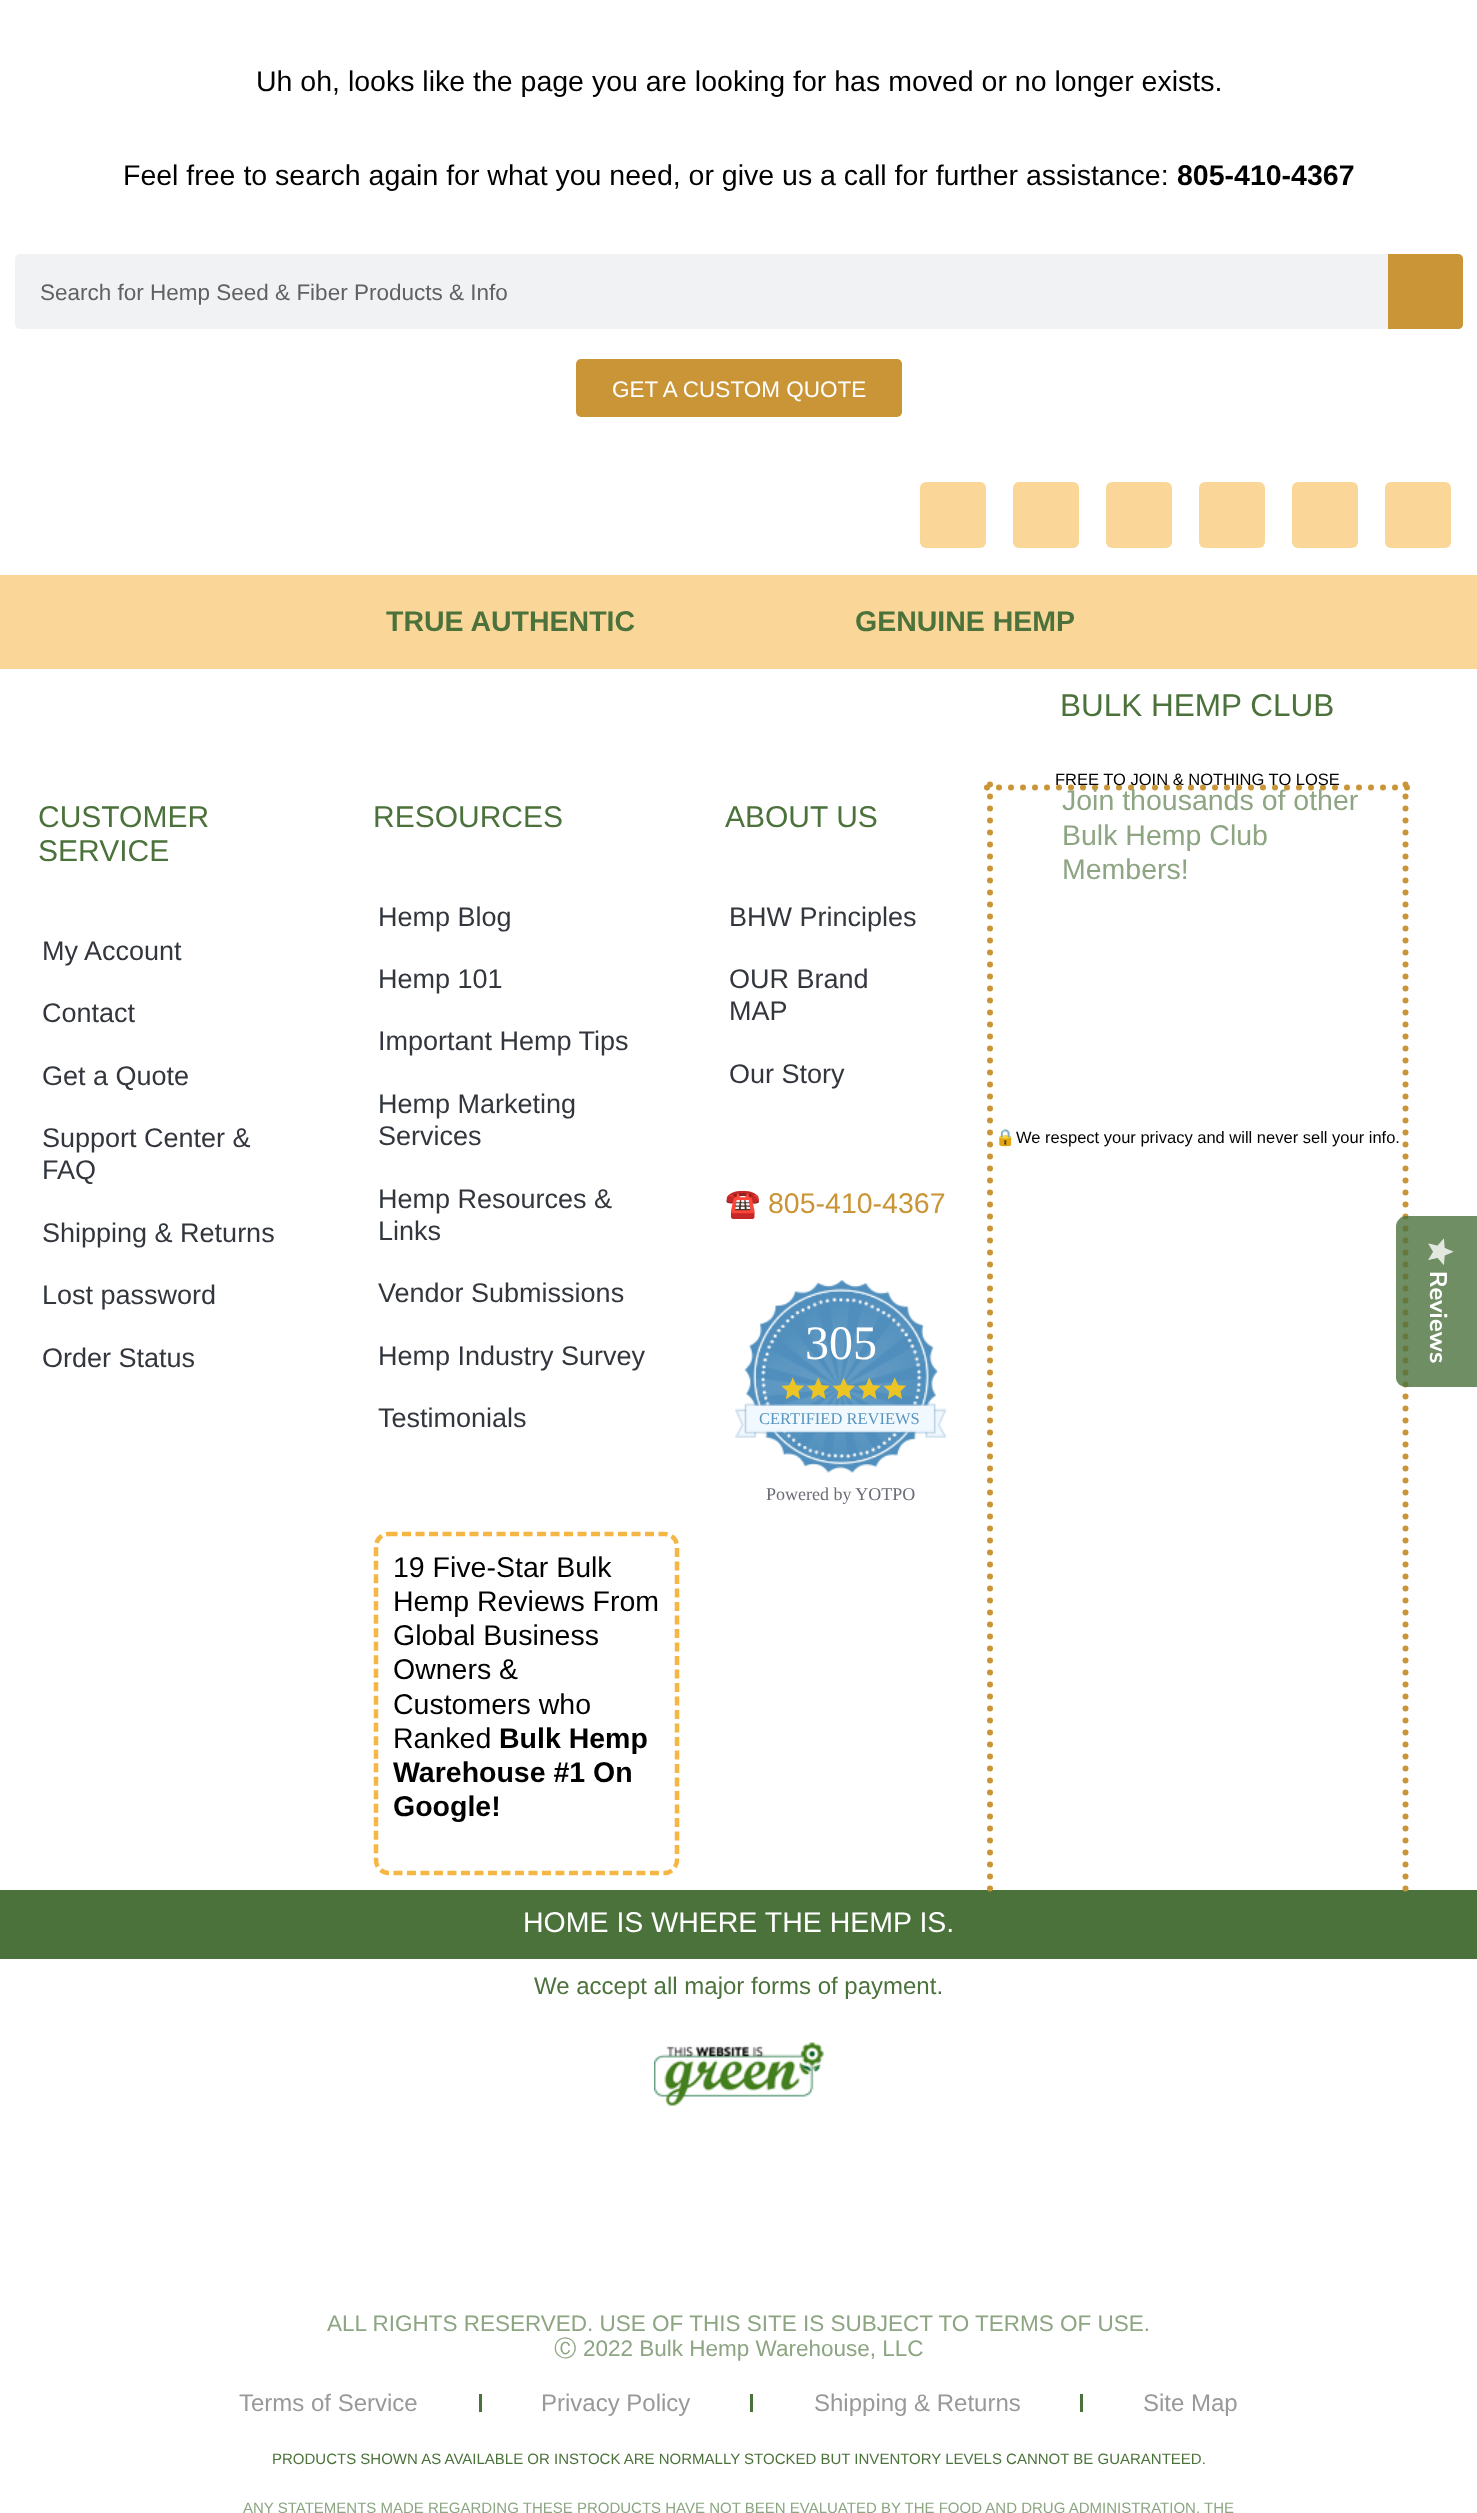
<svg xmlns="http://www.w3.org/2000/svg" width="1477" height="2513">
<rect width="100%" height="100%" fill="#fff"/>
<text x="256" y="91" style="font-family:Liberation Sans;font-size:28.5px;fill:#000">Uh oh, looks like the page you are looking for has moved or no longer exists.</text>
<text x="123" y="185" style="font-family:Liberation Sans;font-size:28.5px;fill:#000">Feel free to search again for what you need, or give us a call for further assistance:</text>
<text x="1177" y="185" style="font-family:Liberation Sans;font-size:28.5px;font-weight:bold;fill:#000">805-410-4367</text>
<rect x="15" y="254" width="1448" height="75" rx="5" fill="#f1f2f3"/>
<text x="40" y="300" style="font-family:Liberation Sans;font-size:22.5px;fill:#606161">Search for Hemp Seed &amp; Fiber Products &amp; Info</text>
<path d="M1388 254h70c3 0 5 2 5 5v65c0 3-2 5-5 5h-70z" fill="#ca9537"/>
<rect x="576" y="359" width="326" height="58" rx="5" fill="#ca9537"/>
<text x="612" y="397" style="font-family:Liberation Sans;font-size:22.5px;fill:#fff">GET A CUSTOM QUOTE</text>
<rect x="920" y="482" width="66" height="66" rx="6" fill="#fad798"/>
<rect x="1013" y="482" width="66" height="66" rx="6" fill="#fad798"/>
<rect x="1106" y="482" width="66" height="66" rx="6" fill="#fad798"/>
<rect x="1199" y="482" width="66" height="66" rx="6" fill="#fad798"/>
<rect x="1292" y="482" width="66" height="66" rx="6" fill="#fad798"/>
<rect x="1385" y="482" width="66" height="66" rx="6" fill="#fad798"/>
<rect y="575" width="1477" height="94" fill="#fad798"/>
<text x="386" y="631" style="font-family:Liberation Sans;font-size:28.5px;font-weight:bold;fill:#4c723c">TRUE AUTHENTIC</text>
<text x="855" y="631" style="font-family:Liberation Sans;font-size:28.5px;font-weight:bold;fill:#4c723c">GENUINE HEMP</text>
<text x="38" y="827" style="font-family:Liberation Sans;font-size:30px;fill:#4c723c">CUSTOMER</text>
<text x="38" y="861" style="font-family:Liberation Sans;font-size:30px;fill:#4c723c">SERVICE</text>
<text x="42" y="960" style="font-family:Liberation Sans;font-size:27px;fill:#33373d">My Account</text>
<text x="42" y="1022" style="font-family:Liberation Sans;font-size:27px;fill:#33373d">Contact</text>
<text x="42" y="1085" style="font-family:Liberation Sans;font-size:27px;fill:#33373d">Get a Quote</text>
<text x="42" y="1147" style="font-family:Liberation Sans;font-size:27px;fill:#33373d">Support Center &amp;</text>
<text x="42" y="1179" style="font-family:Liberation Sans;font-size:27px;fill:#33373d">FAQ</text>
<text x="42" y="1242" style="font-family:Liberation Sans;font-size:27px;fill:#33373d">Shipping &amp; Returns</text>
<text x="42" y="1304" style="font-family:Liberation Sans;font-size:27px;fill:#33373d">Lost password</text>
<text x="42" y="1367" style="font-family:Liberation Sans;font-size:27px;fill:#33373d">Order Status</text>
<text x="373" y="827" style="font-family:Liberation Sans;font-size:30px;fill:#4c723c">RESOURCES</text>
<text x="378" y="926" style="font-family:Liberation Sans;font-size:27px;fill:#33373d">Hemp Blog</text>
<text x="378" y="988" style="font-family:Liberation Sans;font-size:27px;fill:#33373d">Hemp 101</text>
<text x="378" y="1050" style="font-family:Liberation Sans;font-size:27px;fill:#33373d">Important Hemp Tips</text>
<text x="378" y="1113" style="font-family:Liberation Sans;font-size:27px;fill:#33373d">Hemp Marketing</text>
<text x="378" y="1145" style="font-family:Liberation Sans;font-size:27px;fill:#33373d">Services</text>
<text x="378" y="1208" style="font-family:Liberation Sans;font-size:27px;fill:#33373d">Hemp Resources &amp;</text>
<text x="378" y="1240" style="font-family:Liberation Sans;font-size:27px;fill:#33373d">Links</text>
<text x="378" y="1302" style="font-family:Liberation Sans;font-size:27px;fill:#33373d">Vendor Submissions</text>
<text x="378" y="1365" style="font-family:Liberation Sans;font-size:27px;fill:#33373d">Hemp Industry Survey</text>
<text x="378" y="1427" style="font-family:Liberation Sans;font-size:27px;fill:#33373d">Testimonials</text>
<path d="M388.5 1534h276c7 0 12.5 5.5 12.5 12.5v313.5c0 7-5.5 13-12.5 13h-276c-7 0-12.5-6-12.5-13v-313.5c0-7 5.5-12.5 12.5-12.5z" fill="none" stroke="#f6b643" stroke-width="4.5" stroke-dasharray="9 4.5"/>
<text x="393" y="1577" style="font-family:Liberation Sans;font-size:28.5px;fill:#000">19 Five-Star Bulk</text>
<text x="393" y="1611" style="font-family:Liberation Sans;font-size:28.5px;fill:#000">Hemp Reviews From</text>
<text x="393" y="1645" style="font-family:Liberation Sans;font-size:28.5px;fill:#000">Global Business</text>
<text x="393" y="1679" style="font-family:Liberation Sans;font-size:28.5px;fill:#000">Owners &amp;</text>
<text x="393" y="1714" style="font-family:Liberation Sans;font-size:28.5px;fill:#000">Customers who</text>
<text x="393" y="1748" style="font-family:Liberation Sans;font-size:28.5px;fill:#000">Ranked</text>
<text x="499" y="1748" style="font-family:Liberation Sans;font-size:28.5px;font-weight:bold;fill:#000">Bulk Hemp</text>
<text x="393" y="1782" style="font-family:Liberation Sans;font-size:28.5px;font-weight:bold;fill:#000">Warehouse #1 On</text>
<text x="393" y="1816" style="font-family:Liberation Sans;font-size:28.5px;font-weight:bold;fill:#000">Google!</text>
<text x="725" y="827" style="font-family:Liberation Sans;font-size:30px;fill:#4c723c">ABOUT US</text>
<text x="729" y="926" style="font-family:Liberation Sans;font-size:27px;fill:#33373d">BHW Principles</text>
<text x="729" y="988" style="font-family:Liberation Sans;font-size:27px;fill:#33373d">OUR Brand</text>
<text x="729" y="1020" style="font-family:Liberation Sans;font-size:27px;fill:#33373d">MAP</text>
<text x="729" y="1083" style="font-family:Liberation Sans;font-size:27px;fill:#33373d">Our Story</text>
<text x="725" y="1213" style="font-family:Noto Color Emoji;font-size:28.5px;fill:#4c723c">☎️</text>
<text x="768" y="1213" style="font-family:Liberation Sans;font-size:28.5px;fill:#ca9537">805-410-4367</text>
<image x="735" y="1280" width="212" height="193" href="media/1.png"/>
<text x="805" y="1359" style="font-family:Liberation Serif;font-size:48px;fill:#fff">305</text>
<image x="781" y="1377" width="24" height="23" href="media/2.png"/>
<image x="807" y="1377" width="23" height="23" href="media/3.png"/>
<image x="832" y="1377" width="24" height="23" href="media/4.png"/>
<image x="858" y="1377" width="23" height="23" href="media/5.png"/>
<image x="883" y="1377" width="24" height="23" href="media/6.png"/>
<text x="759" y="1424" style="font-family:Liberation Serif;font-size:16.5px;fill:#5997c1">CERTIFIED REVIEWS</text>
<text x="766" y="1500" style="font-family:Liberation Serif;font-size:18px;fill:#6a6c77">Powered by YOTPO</text>
<path d="M987 787.5h421.5" fill="none" stroke="#ca9537" stroke-width="6" stroke-linecap="round" stroke-dasharray="0 12"/>
<rect y="1890" width="1477" height="69" fill="#4c723c"/>
<path d="M1405.5 784.5v1105.5" fill="none" stroke="#ca9537" stroke-width="6" stroke-linecap="round" stroke-dasharray="0 12"/>
<path d="M990 784.5v1105.5" fill="none" stroke="#ca9537" stroke-width="6" stroke-linecap="round" stroke-dasharray="0 12"/>
<text x="1060" y="716" style="font-family:Liberation Sans;font-size:31.5px;fill:#4c723c">BULK HEMP CLUB</text>
<text x="1055" y="785" style="font-family:Liberation Sans;font-size:16.5px;fill:#000">FREE TO JOIN &amp; NOTHING TO LOSE</text>
<text x="1062" y="810" style="font-family:Liberation Sans;font-size:28.5px;fill:#8da582">Join thousands of other</text>
<text x="1062" y="845" style="font-family:Liberation Sans;font-size:28.5px;fill:#8da582">Bulk Hemp Club</text>
<text x="1062" y="879" style="font-family:Liberation Sans;font-size:28.5px;fill:#8da582">Members!</text>
<text x="995" y="1143" style="font-family:Noto Color Emoji;font-size:16.5px;fill:#000">🔒</text>
<text x="1016" y="1143" style="font-family:Liberation Sans;font-size:16.5px;fill:#000">We respect your privacy and will never sell your info.</text>
<text x="523" y="1932" style="font-family:Liberation Sans;font-size:28.5px;fill:#fff">HOME IS WHERE THE HEMP IS.</text>
<text x="534" y="1994" style="font-family:Liberation Sans;font-size:24px;fill:#4c723c">We accept all major forms of payment.</text>
<image x="654" y="2042" width="170" height="64" href="media/7.png"/>
<text x="327" y="2331" style="font-family:Liberation Sans;font-size:22.5px;fill:#8da582">ALL RIGHTS RESERVED. USE OF THIS SITE IS SUBJECT TO TERMS OF USE.</text>
<text x="554" y="2356" style="font-family:WenQuanYi Zen Hei;font-size:22.5px;font-weight:500;fill:#8da582">Ⓒ</text>
<text x="583" y="2356" style="font-family:Liberation Sans;font-size:22.5px;fill:#8da582">2022 Bulk Hemp Warehouse, LLC</text>
<text x="239" y="2411" style="font-family:Liberation Sans;font-size:24px;fill:#999">Terms of Service</text>
<rect x="479" y="2394" width="3" height="18" fill="#4c723c"/>
<text x="541" y="2411" style="font-family:Liberation Sans;font-size:24px;fill:#999">Privacy Policy</text>
<rect x="750" y="2394" width="3" height="18" fill="#4c723c"/>
<text x="814" y="2411" style="font-family:Liberation Sans;font-size:24px;fill:#999">Shipping &amp; Returns</text>
<rect x="1080" y="2394" width="3" height="18" fill="#4c723c"/>
<text x="1143" y="2411" style="font-family:Liberation Sans;font-size:24px;fill:#999">Site Map</text>
<text x="272" y="2464" style="font-family:Liberation Sans;font-size:15px;fill:#4c723c">PRODUCTS SHOWN AS AVAILABLE OR INSTOCK ARE NORMALLY STOCKED BUT INVENTORY LEVELS CANNOT BE GUARANTEED.</text>
<text x="243" y="2513" style="font-family:Liberation Sans;font-size:15px;fill:#8da582">ANY STATEMENTS MADE REGARDING THESE PRODUCTS HAVE NOT BEEN EVALUATED BY THE FOOD AND DRUG ADMINISTRATION. THE</text>
<path d="M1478 1216v171h-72c-5 0-10-4-10-9v-152c0-5 5-10 10-10z" fill="#4c723ccc"/>
<image x="1428" y="1238" width="26" height="27" href="media/8.png"/>
<text x="1430" y="1271" transform="rotate(90 1430 1271)" style="font-family:Nunito Sans;font-size:24px;font-weight:bold;fill:#fff">Reviews</text>
</svg>
